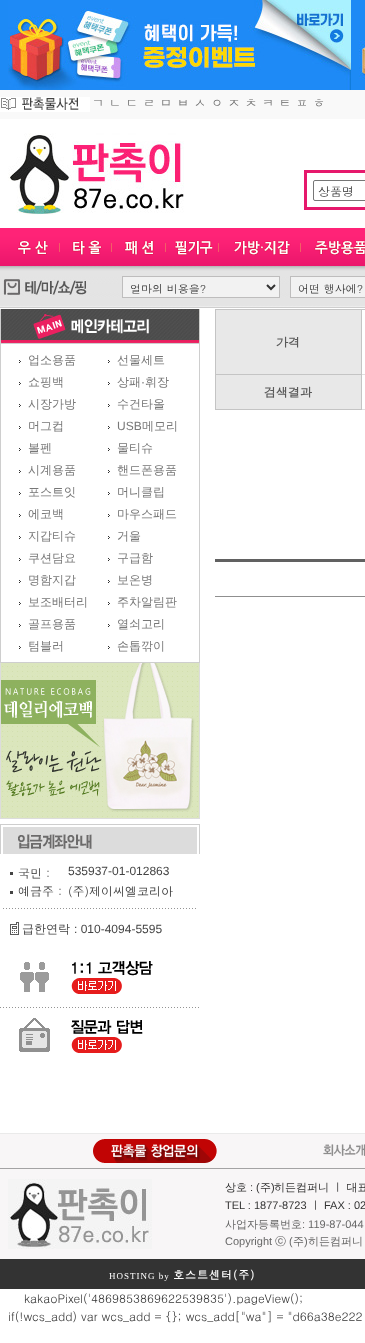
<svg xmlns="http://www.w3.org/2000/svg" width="365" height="1343">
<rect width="100%" height="100%" fill="#fff"/>
<rect width="365" height="90" fill="#1d8af5"/>
<image x="8" y="0" width="343" height="90" href="media/1.png"/>
<image x="359" y="40" width="6" height="40" href="media/2.png"/>
<rect y="90" width="365" height="29" fill="#f9f9f9"/>
<image x="0" y="97" width="90" height="15" href="media/3.png"/>
<text x="92" y="107" style="font-family:WenQuanYi Zen Hei;font-size:12px;font-weight:500;letter-spacing:1px;fill:#666">ㄱ</text>
<text x="109" y="107" style="font-family:WenQuanYi Zen Hei;font-size:12px;font-weight:500;letter-spacing:1px;fill:#666">ㄴ</text>
<text x="126" y="107" style="font-family:WenQuanYi Zen Hei;font-size:12px;font-weight:500;letter-spacing:1px;fill:#666">ㄷ</text>
<text x="143" y="107" style="font-family:WenQuanYi Zen Hei;font-size:12px;font-weight:500;letter-spacing:1px;fill:#666">ㄹ</text>
<text x="160" y="107" style="font-family:WenQuanYi Zen Hei;font-size:12px;font-weight:500;letter-spacing:1px;fill:#666">ㅁ</text>
<text x="177" y="107" style="font-family:WenQuanYi Zen Hei;font-size:12px;font-weight:500;letter-spacing:1px;fill:#666">ㅂ</text>
<text x="194" y="107" style="font-family:WenQuanYi Zen Hei;font-size:12px;font-weight:500;letter-spacing:1px;fill:#666">ㅅ</text>
<text x="211" y="107" style="font-family:WenQuanYi Zen Hei;font-size:12px;font-weight:500;letter-spacing:1px;fill:#666">ㅇ</text>
<text x="228" y="107" style="font-family:WenQuanYi Zen Hei;font-size:12px;font-weight:500;letter-spacing:1px;fill:#666">ㅈ</text>
<text x="245" y="107" style="font-family:WenQuanYi Zen Hei;font-size:12px;font-weight:500;letter-spacing:1px;fill:#666">ㅊ</text>
<text x="262" y="107" style="font-family:WenQuanYi Zen Hei;font-size:12px;font-weight:500;letter-spacing:1px;fill:#666">ㅋ</text>
<text x="279" y="107" style="font-family:WenQuanYi Zen Hei;font-size:12px;font-weight:500;letter-spacing:1px;fill:#666">ㅌ</text>
<text x="296" y="107" style="font-family:WenQuanYi Zen Hei;font-size:12px;font-weight:500;letter-spacing:1px;fill:#666">ㅍ</text>
<text x="313" y="107" style="font-family:WenQuanYi Zen Hei;font-size:12px;font-weight:500;letter-spacing:1px;fill:#666">ㅎ</text>
<image x="8" y="133" width="176" height="82" href="media/4.png"/>
<image x="304" y="170" width="61" height="40" href="media/5.png"/>
<rect x="313.5" y="180.5" width="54" height="20" rx="1.5" fill="none" stroke="#767676"/>
<text x="318" y="196" style="font-family:Dotum;font-size:12px;fill:#333">상품명</text>
<image x="0" y="228" width="365" height="38" href="media/6.png"/>
<image x="17" y="240" width="43" height="15" href="media/7.png"/>
<image x="72" y="239" width="40" height="16" href="media/8.png"/>
<image x="124" y="240" width="42" height="15" href="media/9.png"/>
<image x="174" y="240" width="45" height="16" href="media/10.png"/>
<image x="234" y="240" width="67" height="15" href="media/11.png"/>
<image x="314" y="240" width="51" height="16" href="media/12.png"/>
<image x="0" y="266" width="365" height="42" href="media/13.png"/>
<image x="3" y="279" width="84" height="16" href="media/14.png"/>
<rect x="122.5" y="276.5" width="157" height="21" fill="#f2f2f2" stroke="#bebdbd"/>
<path d="M267 285l4 4l4-4" fill="none" stroke="#333" stroke-width="2"/>
<text x="130" y="293" style="font-family:Dotum;font-size:11px;fill:#333">얼마의 비용을?</text>
<rect x="290.5" y="276.5" width="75" height="21" fill="#f2f2f2" stroke="#bebdbd"/>
<text x="298" y="293" style="font-family:Dotum;font-size:11px;fill:#333">어떤 행사에?</text>
<image x="0" y="309" width="200" height="34" href="media/15.png"/>
<rect x="0.5" y="343.5" width="199" height="319" fill="none" stroke="#cecece"/>
<image x="19" y="360" width="2" height="3" href="media/16.png"/>
<text x="28" y="364" style="font-family:WenQuanYi Zen Hei;font-size:12px;font-weight:500;fill:#777">업소용품</text>
<image x="108" y="360" width="2" height="3" href="media/16.png"/>
<text x="117" y="364" style="font-family:WenQuanYi Zen Hei;font-size:12px;font-weight:500;fill:#777">선물세트</text>
<image x="19" y="382" width="2" height="3" href="media/16.png"/>
<text x="28" y="386" style="font-family:WenQuanYi Zen Hei;font-size:12px;font-weight:500;fill:#777">쇼핑백</text>
<image x="108" y="382" width="2" height="3" href="media/16.png"/>
<text x="117" y="386" style="font-family:WenQuanYi Zen Hei;font-size:12px;font-weight:500;fill:#777">상패</text>
<text x="141" y="386" style="font-family:Liberation Sans;font-size:12px;fill:#777">·</text>
<text x="145" y="386" style="font-family:WenQuanYi Zen Hei;font-size:12px;font-weight:500;fill:#777">휘장</text>
<image x="19" y="404" width="2" height="3" href="media/16.png"/>
<text x="28" y="408" style="font-family:WenQuanYi Zen Hei;font-size:12px;font-weight:500;fill:#777">시장가방</text>
<image x="108" y="404" width="2" height="3" href="media/16.png"/>
<text x="117" y="408" style="font-family:WenQuanYi Zen Hei;font-size:12px;font-weight:500;fill:#777">수건타올</text>
<image x="19" y="426" width="2" height="3" href="media/16.png"/>
<text x="28" y="430" style="font-family:WenQuanYi Zen Hei;font-size:12px;font-weight:500;fill:#777">머그컵</text>
<image x="108" y="426" width="2" height="3" href="media/16.png"/>
<text x="117" y="430" style="font-family:Liberation Sans;font-size:12px;fill:#777">USB</text>
<text x="142" y="430" style="font-family:WenQuanYi Zen Hei;font-size:12px;font-weight:500;fill:#777">메모리</text>
<image x="19" y="448" width="2" height="3" href="media/16.png"/>
<text x="28" y="452" style="font-family:WenQuanYi Zen Hei;font-size:12px;font-weight:500;fill:#777">볼펜</text>
<image x="108" y="448" width="2" height="3" href="media/16.png"/>
<text x="117" y="452" style="font-family:WenQuanYi Zen Hei;font-size:12px;font-weight:500;fill:#777">물티슈</text>
<image x="19" y="470" width="2" height="3" href="media/16.png"/>
<text x="28" y="474" style="font-family:WenQuanYi Zen Hei;font-size:12px;font-weight:500;fill:#777">시계용품</text>
<image x="108" y="470" width="2" height="3" href="media/16.png"/>
<text x="117" y="474" style="font-family:WenQuanYi Zen Hei;font-size:12px;font-weight:500;fill:#777">핸드폰용품</text>
<image x="19" y="492" width="2" height="3" href="media/16.png"/>
<text x="28" y="496" style="font-family:WenQuanYi Zen Hei;font-size:12px;font-weight:500;fill:#777">포스트잇</text>
<image x="108" y="492" width="2" height="3" href="media/16.png"/>
<text x="117" y="496" style="font-family:WenQuanYi Zen Hei;font-size:12px;font-weight:500;fill:#777">머니클립</text>
<image x="19" y="514" width="2" height="3" href="media/16.png"/>
<text x="28" y="518" style="font-family:WenQuanYi Zen Hei;font-size:12px;font-weight:500;fill:#777">에코백</text>
<image x="108" y="514" width="2" height="3" href="media/16.png"/>
<text x="117" y="518" style="font-family:WenQuanYi Zen Hei;font-size:12px;font-weight:500;fill:#777">마우스패드</text>
<image x="19" y="536" width="2" height="3" href="media/16.png"/>
<text x="28" y="540" style="font-family:WenQuanYi Zen Hei;font-size:12px;font-weight:500;fill:#777">지갑티슈</text>
<image x="108" y="536" width="2" height="3" href="media/16.png"/>
<text x="117" y="540" style="font-family:WenQuanYi Zen Hei;font-size:12px;font-weight:500;fill:#777">거울</text>
<image x="19" y="558" width="2" height="3" href="media/16.png"/>
<text x="28" y="562" style="font-family:WenQuanYi Zen Hei;font-size:12px;font-weight:500;fill:#777">쿠션담요</text>
<image x="108" y="558" width="2" height="3" href="media/16.png"/>
<text x="117" y="562" style="font-family:WenQuanYi Zen Hei;font-size:12px;font-weight:500;fill:#777">구급함</text>
<image x="19" y="580" width="2" height="3" href="media/16.png"/>
<text x="28" y="584" style="font-family:WenQuanYi Zen Hei;font-size:12px;font-weight:500;fill:#777">명함지갑</text>
<image x="108" y="580" width="2" height="3" href="media/16.png"/>
<text x="117" y="584" style="font-family:WenQuanYi Zen Hei;font-size:12px;font-weight:500;fill:#777">보온병</text>
<image x="19" y="602" width="2" height="3" href="media/16.png"/>
<text x="28" y="606" style="font-family:WenQuanYi Zen Hei;font-size:12px;font-weight:500;fill:#777">보조배터리</text>
<image x="108" y="602" width="2" height="3" href="media/16.png"/>
<text x="117" y="606" style="font-family:WenQuanYi Zen Hei;font-size:12px;font-weight:500;fill:#777">주차알림판</text>
<image x="19" y="624" width="2" height="3" href="media/16.png"/>
<text x="28" y="628" style="font-family:WenQuanYi Zen Hei;font-size:12px;font-weight:500;fill:#777">골프용품</text>
<image x="108" y="624" width="2" height="3" href="media/16.png"/>
<text x="117" y="628" style="font-family:WenQuanYi Zen Hei;font-size:12px;font-weight:500;fill:#777">열쇠고리</text>
<image x="19" y="646" width="2" height="3" href="media/16.png"/>
<text x="28" y="650" style="font-family:WenQuanYi Zen Hei;font-size:12px;font-weight:500;fill:#777">텀블러</text>
<image x="108" y="646" width="2" height="3" href="media/16.png"/>
<text x="117" y="650" style="font-family:WenQuanYi Zen Hei;font-size:12px;font-weight:500;fill:#777">손톱깎이</text>
<image x="0" y="663" width="200" height="156" href="media/17.png"/>
<image x="0" y="824" width="200" height="30" href="media/18.png"/>
<rect x="10" y="872" width="3" height="3" fill="#444"/>
<text x="18" y="878" style="font-family:Dotum;font-size:12px;fill:#333">국민 :</text>
<text x="68" y="875" style="font-family:Liberation Sans;font-size:12px;fill:#444">535937-01-012863</text>
<rect x="10" y="891" width="3" height="3" fill="#444"/>
<text x="18" y="896" style="font-family:Dotum;font-size:12px;fill:#333">예금주 :</text>
<text x="68" y="896" style="font-family:Dotum;font-size:12px;fill:#333">(주)제이씨엘코리아</text>
<image x="3" y="908" width="193" height="1" href="media/19.png"/>
<image x="10" y="922" width="9" height="13" href="media/20.png"/>
<text x="22" y="933" style="font-family:WenQuanYi Zen Hei;font-size:12px;font-weight:500;fill:#444">급한연락</text>
<text x="74" y="933" style="font-family:Liberation Sans;font-size:12px;fill:#444">: 010-4094-5595</text>
<image x="20" y="961" width="133" height="33" href="media/21.png"/>
<image x="0" y="1007" width="199" height="1" href="media/22.png"/>
<image x="19" y="1018" width="124" height="35" href="media/23.png"/>
<rect x="215" y="309" width="150" height="1" fill="#c4c4c4"/>
<rect x="215" y="409" width="150" height="1" fill="#c4c4c4"/>
<rect x="216" y="310" width="145" height="64" fill="#e8e8e8"/>
<rect x="361" y="409" width="4" height="1" fill="#e0e0e0"/>
<rect x="361" y="374" width="1" height="36" fill="#c4c4c4"/>
<rect x="361" y="374" width="4" height="1" fill="#e0e0e0"/>
<rect x="361" y="309" width="1" height="66" fill="#c4c4c4"/>
<rect x="215" y="374" width="1" height="36" fill="#c4c4c4"/>
<rect x="215" y="374" width="147" height="1" fill="#c4c4c4"/>
<rect x="215" y="309" width="1" height="66" fill="#c4c4c4"/>
<text x="276" y="347" style="font-family:Dotum;font-size:12px;font-weight:bold;fill:#595959">가격</text>
<rect x="216" y="375" width="145" height="34" fill="#e8e8e8"/>
<text x="264" y="397" style="font-family:Dotum;font-size:12px;font-weight:bold;fill:#595959">검색결과</text>
<image x="215" y="559" width="150" height="38" href="media/24.png"/>
<rect y="1134" width="365" height="125" fill="#f8f6f7"/>
<rect y="1133" width="365" height="1" fill="#eaeaea"/>
<image x="93" y="1139" width="124" height="24" href="media/25.png"/>
<image x="323" y="1144" width="42" height="12" href="media/26.png"/>
<rect y="1168" width="365" height="1" fill="#a4a3a4"/>
<image x="8" y="1179" width="144" height="70" href="media/27.png"/>
<text x="225" y="1191" style="font-family:WenQuanYi Zen Hei;font-size:11px;font-weight:500;fill:#333">상호</text>
<text x="250" y="1191" style="font-family:Liberation Sans;font-size:11px;fill:#333">: (</text>
<text x="260" y="1191" style="font-family:WenQuanYi Zen Hei;font-size:11px;font-weight:500;fill:#333">주</text>
<text x="271" y="1191" style="font-family:Liberation Sans;font-size:11px;fill:#333">)</text>
<text x="274" y="1191" style="font-family:WenQuanYi Zen Hei;font-size:11px;font-weight:500;fill:#333">히든컴퍼니 ㅣ 대표</text>
<text x="225" y="1209" style="font-family:Liberation Sans;font-size:11px;fill:#333">TEL : 1877-8723</text>
<text x="310" y="1209" style="font-family:WenQuanYi Zen Hei;font-size:11px;font-weight:500;fill:#333">ㅣ</text>
<text x="324" y="1209" style="font-family:Liberation Sans;font-size:11px;fill:#333">FAX : 02</text>
<text x="225" y="1228" style="font-family:WenQuanYi Zen Hei;font-size:11px;font-weight:500;fill:#666">사업자등록번호</text>
<text x="302" y="1228" style="font-family:Liberation Sans;font-size:11px;fill:#666">: 119-87-044</text>
<text x="225" y="1245" style="font-family:Liberation Sans;font-size:11px;fill:#666">Copyright</text>
<text x="275" y="1245" style="font-family:WenQuanYi Zen Hei;font-size:11px;font-weight:500;fill:#666">ⓒ</text>
<text x="289" y="1245" style="font-family:Liberation Sans;font-size:11px;fill:#666">(</text>
<text x="293" y="1245" style="font-family:WenQuanYi Zen Hei;font-size:11px;font-weight:500;fill:#666">주</text>
<text x="304" y="1245" style="font-family:Liberation Sans;font-size:11px;fill:#666">)</text>
<text x="308" y="1245" style="font-family:WenQuanYi Zen Hei;font-size:11px;font-weight:500;fill:#666">히든컴퍼니</text>
<rect y="1259" width="365" height="30" fill="#333"/>
<text x="109" y="1279" style="font-family:Liberation Serif;font-size:9px;letter-spacing:1px;fill:#fff">HOSTING by</text>
<text x="173" y="1279" style="font-family:Dotum;font-size:11px;font-weight:bold;letter-spacing:1px;fill:#fff">호스트센터(주)</text>
<text x="24" y="1303" style="font-family:Dotum;font-size:12px;fill:#333">kakaoPixel('4869853869622539835').pageView();</text>
<text x="8" y="1321" style="font-family:Dotum;font-size:12px;fill:#333">if(!wcs_add) var wcs_add = {}; wcs_add["wa"] = "d66a38e222</text>
</svg>
